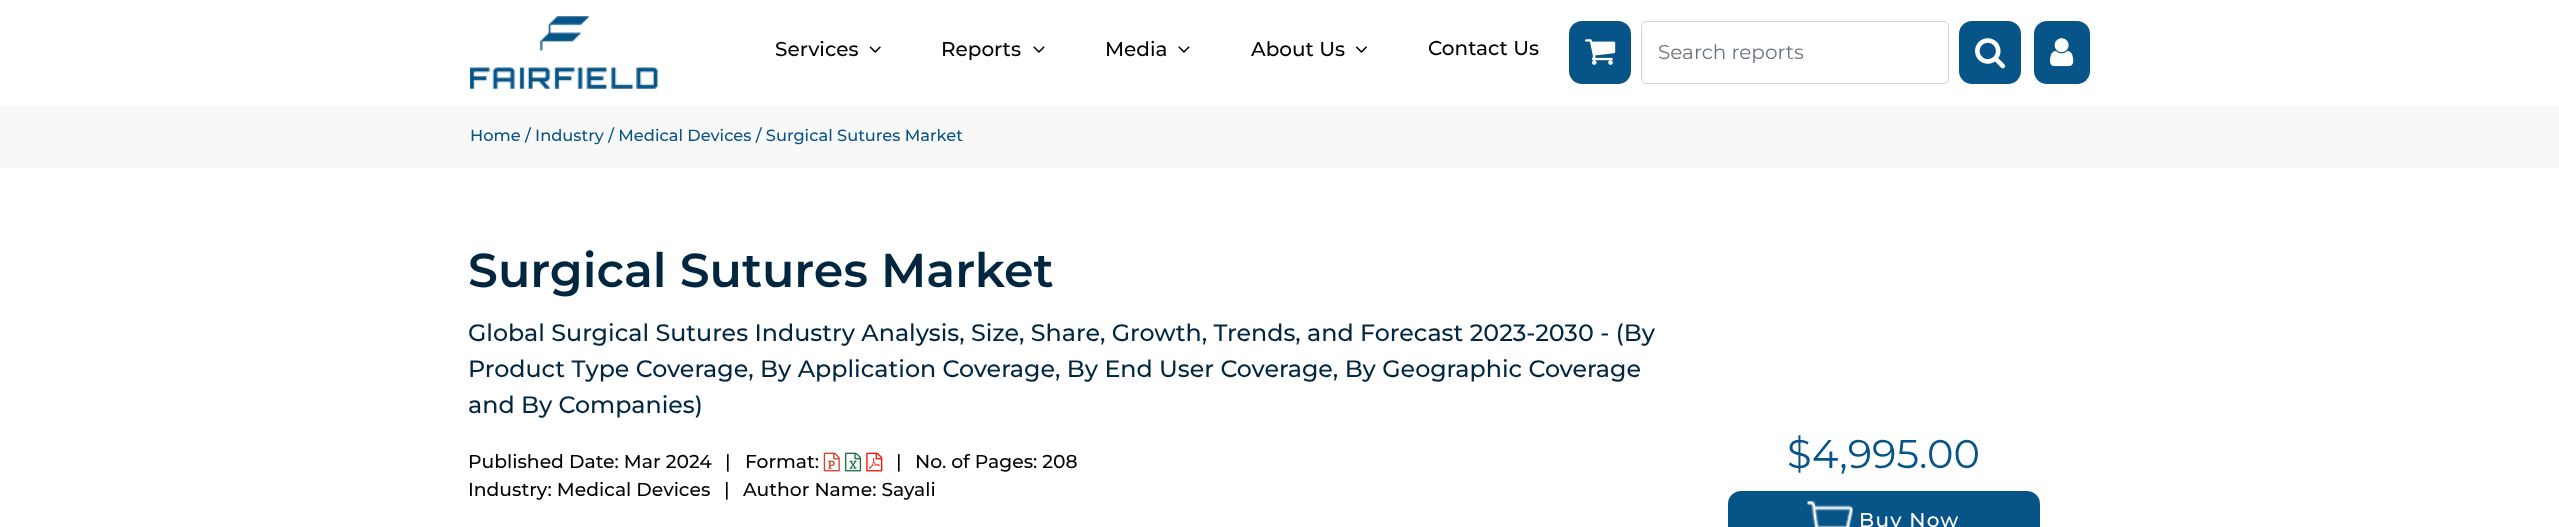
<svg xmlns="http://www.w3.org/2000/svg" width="2559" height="527">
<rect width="100%" height="100%" fill="#fff"/>
<image x="470" y="16" width="188" height="73" href="media/1.png"/>
<text x="775" y="56" style="font-family:Montserrat;font-size:20px;font-weight:500;fill:#000">Services</text>
<image x="869" y="46" width="12" height="7" href="media/2.png"/>
<text x="941" y="56" style="font-family:Montserrat;font-size:20px;font-weight:500;fill:#000">Reports</text>
<image x="1033" y="46" width="12" height="7" href="media/3.png"/>
<text x="1105" y="56" style="font-family:Montserrat;font-size:20px;font-weight:500;fill:#000">Media</text>
<image x="1178" y="46" width="12" height="7" href="media/3.png"/>
<text x="1251" y="56" style="font-family:Montserrat;font-size:20px;font-weight:500;fill:#000">About Us</text>
<image x="1355" y="46" width="12" height="7" href="media/4.png"/>
<text x="1428" y="55" style="font-family:Montserrat;font-size:20px;font-weight:500;fill:#000">Contact Us</text>
<rect x="1569" y="21" width="62" height="63" rx="13" fill="#075488"/>
<image x="1585" y="39" width="31" height="26" href="media/5.png"/>
<rect x="1641.5" y="21.5" width="307" height="62" rx="4.5" fill="none" stroke="#ced4da"/>
<text x="1658" y="59" style="font-family:Montserrat;font-size:20px;fill:#6c757d">Search reports</text>
<rect x="1959" y="21" width="62" height="63" rx="13" fill="#075488"/>
<image x="1975" y="38" width="31" height="31" href="media/6.png"/>
<rect x="2034" y="21" width="56" height="63" rx="13" fill="#075488"/>
<image x="2050" y="38" width="24" height="29" href="media/7.png"/>
<rect y="105" width="2559" height="63" fill="#f8f8f8"/>
<text x="470" y="141" style="font-family:Montserrat;font-size:16.25px;font-weight:500;fill:#075488">Home / Industry / Medical Devices / Surgical Sutures Market</text>
<text x="468" y="287" style="font-family:Montserrat;font-size:47.5px;font-weight:600;fill:#012640">Surgical Sutures Market</text>
<text x="468" y="341" style="font-family:Montserrat;font-size:23.75px;font-weight:500;fill:#012640">Global Surgical Sutures Industry Analysis, Size, Share, Growth, Trends, and Forecast 2023-2030 - (By</text>
<text x="468" y="377" style="font-family:Montserrat;font-size:23.75px;font-weight:500;fill:#012640">Product Type Coverage, By Application Coverage, By End User Coverage, By Geographic Coverage</text>
<text x="468" y="413" style="font-family:Montserrat;font-size:23.75px;font-weight:500;fill:#012640">and By Companies)</text>
<text x="468" y="468" style="font-family:Montserrat;font-size:18.75px;font-weight:500;fill:#000">Published Date: Mar 2024</text>
<text x="725" y="468" style="font-family:Montserrat;font-size:18.75px;font-weight:500;fill:#000">|</text>
<text x="745" y="468" style="font-family:Montserrat;font-size:18.75px;font-weight:500;fill:#000">Format:</text>
<image x="823" y="452" width="17" height="20" href="media/8.png"/>
<image x="845" y="452" width="17" height="20" href="media/9.png"/>
<image x="866" y="452" width="17" height="20" href="media/10.png"/>
<text x="896" y="468" style="font-family:Montserrat;font-size:18.75px;font-weight:500;fill:#000">|</text>
<text x="915" y="468" style="font-family:Montserrat;font-size:18.75px;font-weight:500;fill:#000">No. of Pages: 208</text>
<text x="468" y="496" style="font-family:Montserrat;font-size:18.75px;font-weight:500;fill:#000">Industry: Medical Devices</text>
<text x="724" y="496" style="font-family:Montserrat;font-size:18.75px;font-weight:500;fill:#000">|</text>
<text x="743" y="496" style="font-family:Montserrat;font-size:18.75px;font-weight:500;fill:#000">Author Name: Sayali</text>
<text x="1787" y="468" style="font-family:Montserrat;font-size:40px;fill:#075488">$4,995.00</text>
<rect x="1729.5" y="492.5" width="309" height="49" rx="11.5" fill="#075488" stroke="#075488" stroke-width="3"/>
<image x="1807" y="501" width="46" height="26" href="media/11.png"/>
<text x="1859" y="527" style="font-family:Montserrat;font-size:20px;font-weight:500;letter-spacing:1.25px;fill:#fff">Buy Now</text>
</svg>
